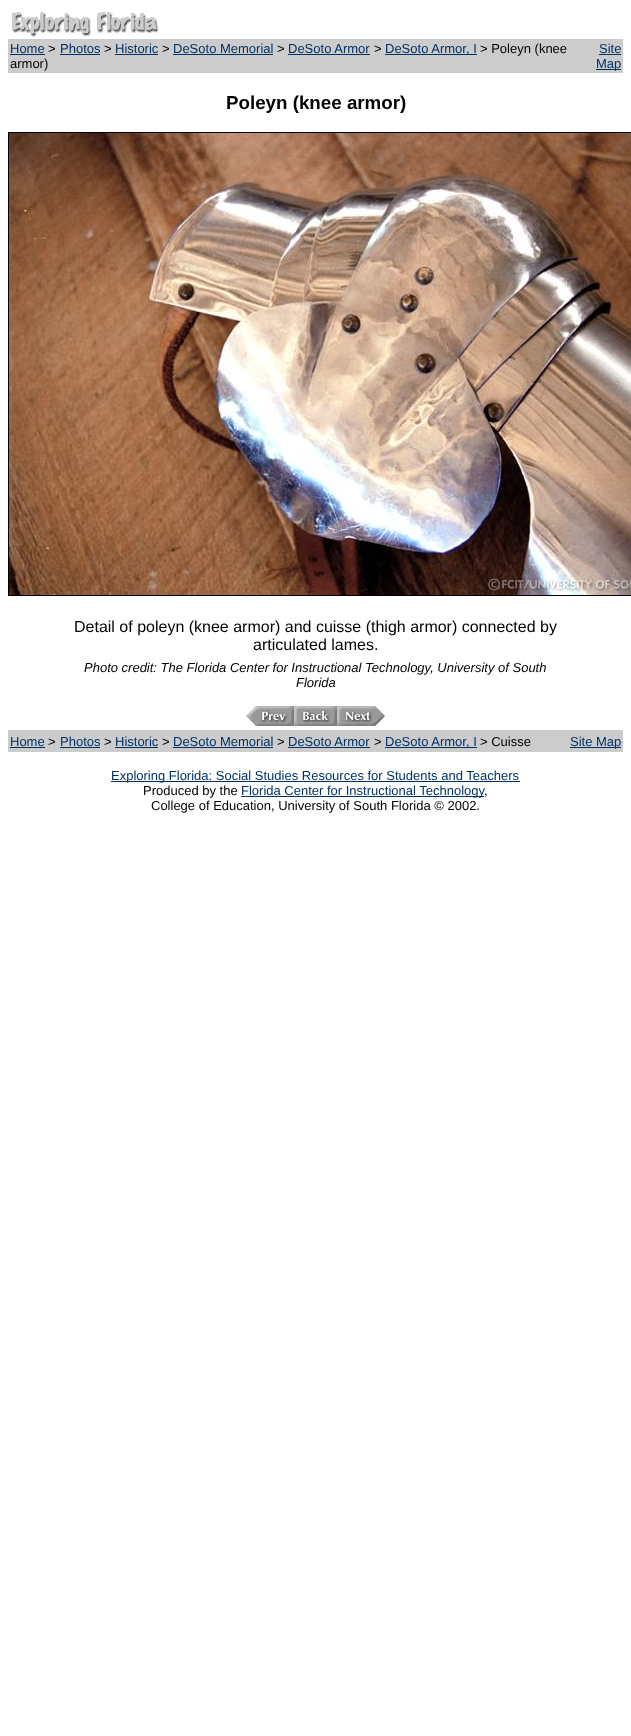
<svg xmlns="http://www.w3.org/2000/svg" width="631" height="1736">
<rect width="100%" height="100%" fill="#fff"/>
<image x="12" y="12" width="147" height="25" href="media/1.png"/>
<rect x="8" y="39" width="615" height="34" fill="#ccc"/>
<text x="10" y="53" style="font-family:Liberation Sans;font-size:13px;fill:#036">Home</text>
<rect x="10" y="54" width="35" height="1" fill="#036"/>
<text x="48" y="53" style="font-family:Liberation Sans;font-size:13px;fill:#000">&gt;</text>
<text x="60" y="53" style="font-family:Liberation Sans;font-size:13px;fill:#036">Photos</text>
<rect x="60" y="54" width="40" height="1" fill="#036"/>
<text x="104" y="53" style="font-family:Liberation Sans;font-size:13px;fill:#000">&gt;</text>
<text x="115" y="53" style="font-family:Liberation Sans;font-size:13px;fill:#036">Historic</text>
<rect x="115" y="54" width="43" height="1" fill="#036"/>
<text x="162" y="53" style="font-family:Liberation Sans;font-size:13px;fill:#000">&gt;</text>
<text x="173" y="53" style="font-family:Liberation Sans;font-size:13px;fill:#036">DeSoto Memorial</text>
<rect x="173" y="54" width="100" height="1" fill="#036"/>
<text x="277" y="53" style="font-family:Liberation Sans;font-size:13px;fill:#000">&gt;</text>
<text x="288" y="53" style="font-family:Liberation Sans;font-size:13px;fill:#036">DeSoto Armor</text>
<rect x="288" y="54" width="82" height="1" fill="#036"/>
<text x="374" y="53" style="font-family:Liberation Sans;font-size:13px;fill:#000">&gt;</text>
<rect x="385" y="54" width="92" height="1" fill="#036"/>
<text x="385" y="53" style="font-family:Liberation Sans;font-size:13px;fill:#036">DeSoto Armor, I</text>
<text x="480" y="53" style="font-family:Liberation Sans;font-size:13px;fill:#000">&gt; Poleyn (knee</text>
<text x="10" y="68" style="font-family:Liberation Sans;font-size:13px;fill:#000">armor)</text>
<text x="599" y="53" style="font-family:Liberation Sans;font-size:13px;fill:#036">Site</text>
<rect x="599" y="54" width="22" height="1" fill="#036"/>
<rect x="596" y="69" width="25" height="1" fill="#036"/>
<text x="596" y="68" style="font-family:Liberation Sans;font-size:13px;fill:#036">Map</text>
<text x="226" y="109" style="font-family:Liberation Sans;font-size:18.75px;font-weight:bold;fill:#000">Poleyn (knee armor)</text>
<rect x="8.5" y="132.5" width="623" height="463" fill="none" stroke="#000"/>
<image x="9" y="133" width="622" height="462" href="media/2.png"/>
<text x="74" y="632" style="font-family:Liberation Sans;font-size:16px;fill:#000">Detail of poleyn (knee armor) and cuisse (thigh armor) connected by</text>
<text x="253" y="650" style="font-family:Liberation Sans;font-size:16px;fill:#000">articulated lames.</text>
<text x="84" y="672" style="font-family:Liberation Sans;font-size:13px;font-style:italic;fill:#000">Photo credit: The Florida Center for Instructional Technology, University of South</text>
<text x="296" y="687" style="font-family:Liberation Sans;font-size:13px;font-style:italic;fill:#000">Florida</text>
<image x="246" y="706" width="48" height="20" href="media/3.png"/>
<image x="294" y="706" width="43" height="20" href="media/4.png"/>
<image x="337" y="706" width="48" height="20" href="media/5.png"/>
<rect x="8" y="730" width="615" height="22" fill="#ccc"/>
<text x="10" y="746" style="font-family:Liberation Sans;font-size:13px;fill:#036">Home</text>
<rect x="10" y="747" width="35" height="1" fill="#036"/>
<text x="48" y="746" style="font-family:Liberation Sans;font-size:13px;fill:#000">&gt;</text>
<text x="60" y="746" style="font-family:Liberation Sans;font-size:13px;fill:#036">Photos</text>
<rect x="60" y="747" width="40" height="1" fill="#036"/>
<text x="104" y="746" style="font-family:Liberation Sans;font-size:13px;fill:#000">&gt;</text>
<text x="115" y="746" style="font-family:Liberation Sans;font-size:13px;fill:#036">Historic</text>
<rect x="115" y="747" width="43" height="1" fill="#036"/>
<text x="162" y="746" style="font-family:Liberation Sans;font-size:13px;fill:#000">&gt;</text>
<text x="173" y="746" style="font-family:Liberation Sans;font-size:13px;fill:#036">DeSoto Memorial</text>
<rect x="173" y="747" width="100" height="1" fill="#036"/>
<text x="277" y="746" style="font-family:Liberation Sans;font-size:13px;fill:#000">&gt;</text>
<text x="288" y="746" style="font-family:Liberation Sans;font-size:13px;fill:#036">DeSoto Armor</text>
<rect x="288" y="747" width="82" height="1" fill="#036"/>
<text x="374" y="746" style="font-family:Liberation Sans;font-size:13px;fill:#000">&gt;</text>
<rect x="385" y="747" width="92" height="1" fill="#036"/>
<text x="385" y="746" style="font-family:Liberation Sans;font-size:13px;fill:#036">DeSoto Armor, I</text>
<text x="480" y="746" style="font-family:Liberation Sans;font-size:13px;fill:#000">&gt; Cuisse</text>
<rect x="570" y="747" width="51" height="1" fill="#036"/>
<text x="570" y="746" style="font-family:Liberation Sans;font-size:13px;fill:#036">Site Map</text>
<rect x="111" y="781" width="409" height="1" fill="#036"/>
<text x="111" y="780" style="font-family:Liberation Sans;font-size:13px;fill:#036">Exploring Florida: Social Studies Resources for Students and Teachers</text>
<text x="143" y="795" style="font-family:Liberation Sans;font-size:13px;fill:#000">Produced by the</text>
<rect x="241" y="796" width="243" height="1" fill="#036"/>
<text x="241" y="795" style="font-family:Liberation Sans;font-size:13px;fill:#036">Florida Center for Instructional Technology</text>
<text x="484" y="795" style="font-family:Liberation Sans;font-size:13px;fill:#000">,</text>
<text x="151" y="810" style="font-family:Liberation Sans;font-size:13px;fill:#000">College of Education, University of South Florida © 2002.</text>
</svg>
